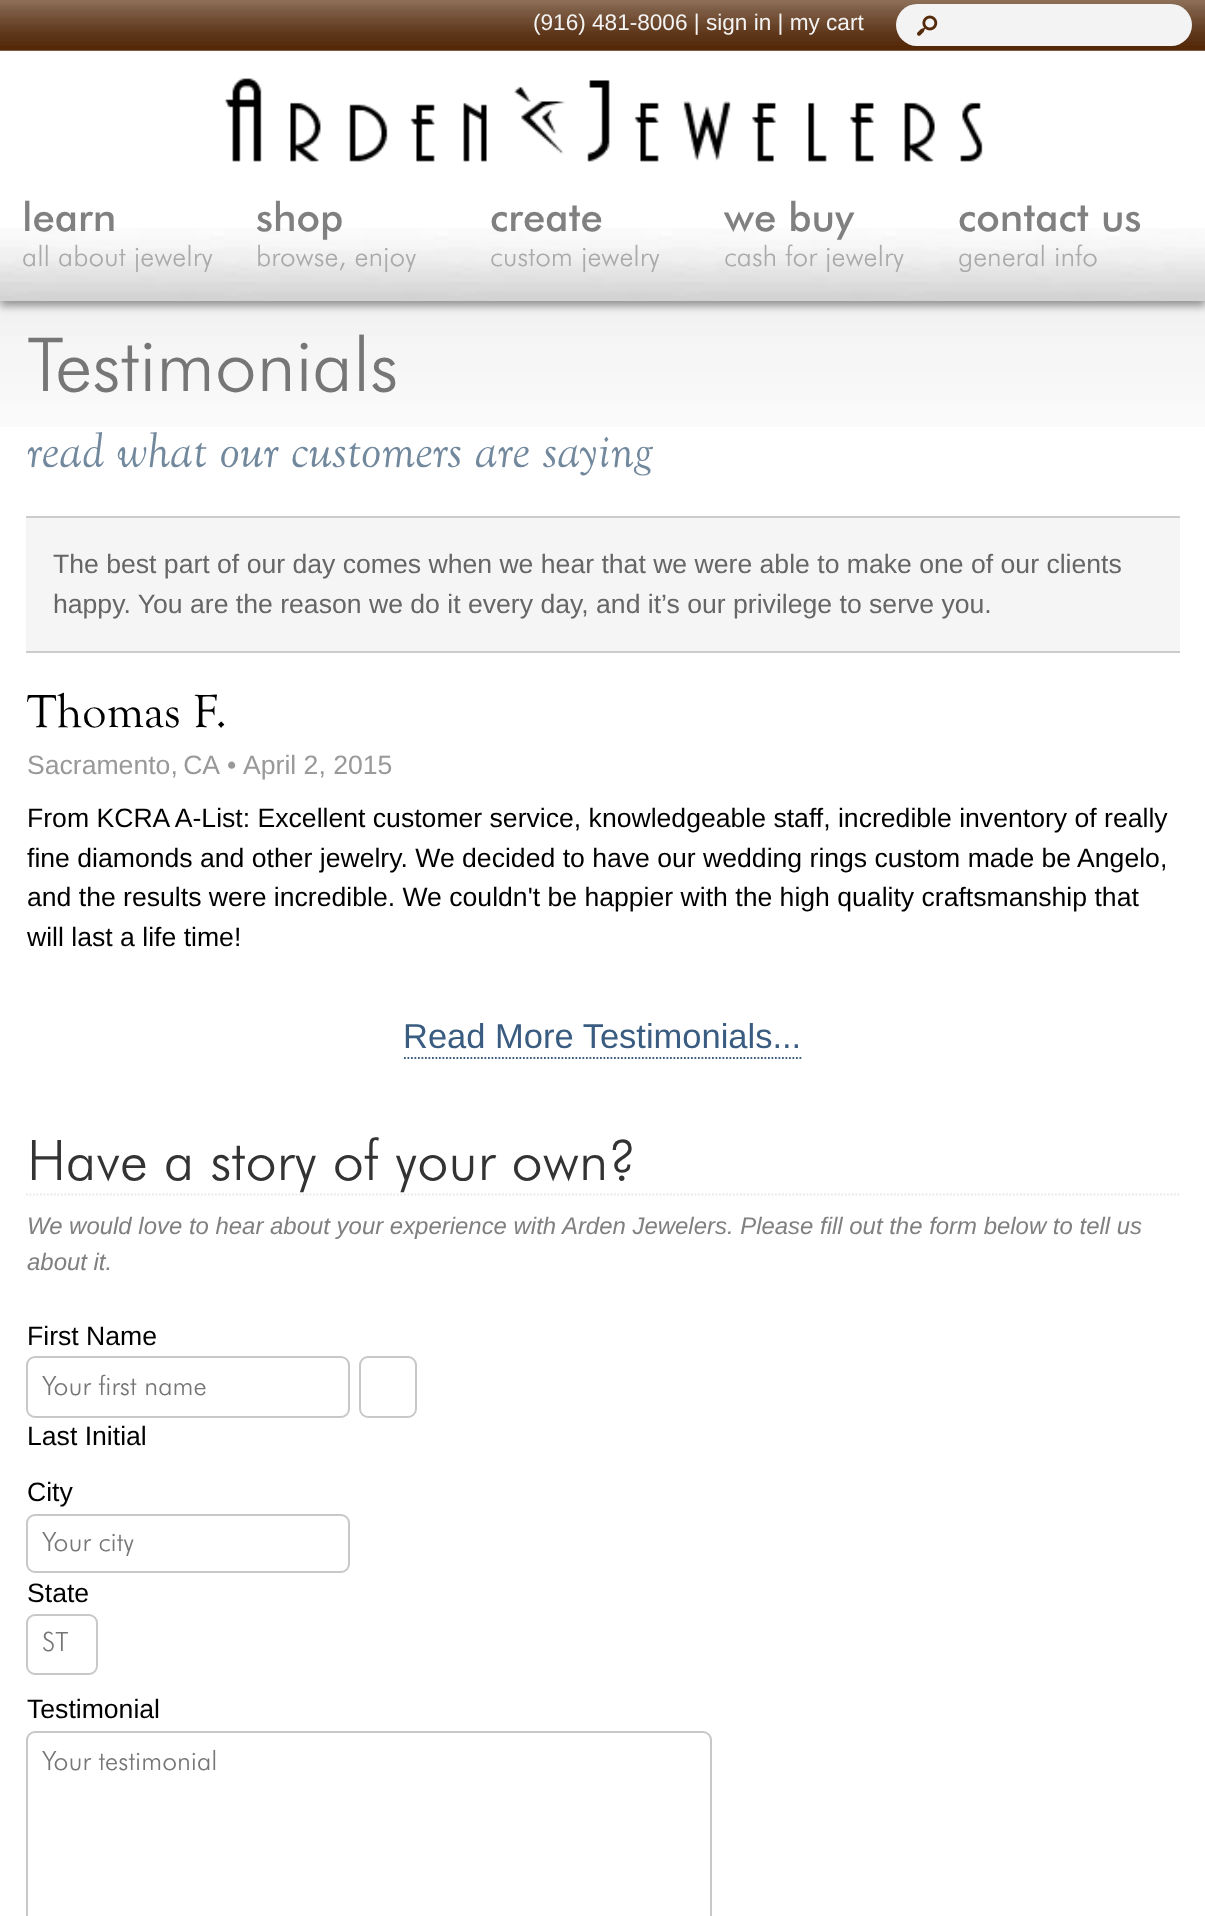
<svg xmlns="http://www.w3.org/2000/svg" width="1205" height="1916">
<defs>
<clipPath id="clip1"><rect x="42" y="1530" width="294" height="26"/></clipPath>
</defs>
<rect width="100%" height="100%" fill="#fff"/>
<image x="0" y="301" width="1205" height="126" href="media/5.png"/>
<rect y="5" width="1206" height="301" fill="#00000066" filter="blur(4.5px)"/>
<rect y="50" width="1205" height="178" fill="#fff"/>
<image x="0" y="228" width="1205" height="73" href="media/1.png"/>
<image x="0" y="0" width="1205" height="51" href="media/2.png"/>
<text x="533" y="30" style="font-family:Liberation Sans;font-size:22.6px;fill:#f3f3f3">(916) 481-8006 | sign in | my cart</text>
<rect x="896" y="4" width="296" height="42" rx="21" fill="#f3f3f3"/>
<image x="917" y="15" width="21" height="21" href="media/3.png"/>
<image x="225" y="78" width="758" height="84" href="media/4.png"/>
<text x="22" y="231" style="font-family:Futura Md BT;font-size:40px;font-weight:500;fill:#808080">learn</text>
<text x="22" y="266" style="font-family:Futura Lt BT;font-size:28px;font-weight:300;fill:#aaa">all about jewelry</text>
<text x="256" y="231" style="font-family:Futura Md BT;font-size:40px;font-weight:500;fill:#808080">shop</text>
<text x="256" y="266" style="font-family:Futura Lt BT;font-size:28px;font-weight:300;fill:#aaa">browse, enjoy</text>
<text x="490" y="231" style="font-family:Futura Md BT;font-size:40px;font-weight:500;fill:#808080">create</text>
<text x="490" y="266" style="font-family:Futura Lt BT;font-size:28px;font-weight:300;fill:#aaa">custom jewelry</text>
<text x="724" y="231" style="font-family:Futura Md BT;font-size:40px;font-weight:500;fill:#808080">we buy</text>
<text x="724" y="266" style="font-family:Futura Lt BT;font-size:28px;font-weight:300;fill:#aaa">cash for jewelry</text>
<text x="958" y="231" style="font-family:Futura Md BT;font-size:40px;font-weight:500;fill:#808080">contact us</text>
<text x="958" y="266" style="font-family:Futura Lt BT;font-size:28px;font-weight:300;fill:#aaa">general info</text>
<text x="27" y="391" style="font-family:Futura Lt BT;font-size:74.5px;font-weight:300;fill:#767676">Testimonials</text>
<text x="27" y="467" style="font-family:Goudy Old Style;font-size:50.5px;font-style:italic;fill:#72889d">read what our customers are saying</text>
<rect x="26" y="518" width="1154" height="133" fill="#f5f5f5"/>
<rect x="26" y="516" width="1154" height="2" fill="#ccc"/>
<rect x="26" y="651" width="1154" height="2" fill="#ccc"/>
<text x="53" y="573" style="font-family:Liberation Sans;font-size:26.6px;fill:#666">The best part of our day comes when we hear that we were able to make one of our clients</text>
<text x="53" y="613" style="font-family:Liberation Sans;font-size:26.6px;fill:#666">happy. You are the reason we do it every day, and it’s our privilege to serve you.</text>
<text x="27" y="727" style="font-family:Goudy Old Style;font-size:48px;fill:#000">Thomas F.</text>
<text x="27" y="774" word-spacing="-2" style="font-family:Liberation Sans;font-size:26.6px;fill:#999">Sacramento, CA</text>
<text x="227" y="774" style="font-family:Liberation Sans;font-size:26.6px;fill:#999">•</text>
<text x="243" y="774" style="font-family:Liberation Sans;font-size:26.6px;fill:#999">April 2, 2015</text>
<text x="27" y="827" style="font-family:Liberation Sans;font-size:26.6px;fill:#000">From KCRA A-List: Excellent customer service, knowledgeable staff, incredible inventory of really</text>
<text x="27" y="867" style="font-family:Liberation Sans;font-size:26.6px;fill:#000">fine diamonds and other jewelry. We decided to have our wedding rings custom made be Angelo,</text>
<text x="27" y="906" style="font-family:Liberation Sans;font-size:26.6px;fill:#000">and the results were incredible. We couldn't be happier with the high quality craftsmanship that</text>
<text x="27" y="946" style="font-family:Liberation Sans;font-size:26.6px;fill:#000">will last a life time!</text>
<path d="M404 1058h397.5" fill="none" stroke="#395c80" stroke-width="1.8" stroke-dasharray="1.75 1.75"/>
<text x="403" y="1048" style="font-family:Liberation Sans;font-size:34.5px;fill:#395c80">Read More Testimonials...</text>
<path d="M26 1194.5h1153.5" fill="none" stroke="#e8e8e8" stroke-width="1.8" stroke-dasharray="1.75 1.75"/>
<text x="27" y="1180" style="font-family:Futura Lt BT;font-size:55.9px;font-weight:300;fill:#333">Have a story of your own?</text>
<text x="27" y="1234" style="font-family:Liberation Sans;font-size:23.95px;font-style:italic;fill:#808080">We would love to hear about your experience with Arden Jewelers. Please fill out the form below to tell us</text>
<text x="27" y="1270" style="font-family:Liberation Sans;font-size:23.95px;font-style:italic;fill:#808080">about it.</text>
<text x="27" y="1345" style="font-family:Liberation Sans;font-size:26.6px;fill:#000">First Name</text>
<rect x="27" y="1357" width="322" height="60" rx="8" fill="none" stroke="#c8c8c8" stroke-width="2"/>
<text x="42" y="1395" style="font-family:Futura Lt BT;font-size:26.6px;font-weight:300;fill:#767676">Your first name</text>
<rect x="360" y="1357" width="56" height="60" rx="8" fill="none" stroke="#c8c8c8" stroke-width="2"/>
<text x="27" y="1445" style="font-family:Liberation Sans;font-size:26.6px;fill:#000">Last Initial</text>
<text x="27" y="1501" style="font-family:Liberation Sans;font-size:26.6px;fill:#000">City</text>
<rect x="27" y="1515" width="322" height="57" rx="8" fill="none" stroke="#c8c8c8" stroke-width="2"/>
<g clip-path="url(#clip1)">
<text x="42" y="1551" style="font-family:Futura Lt BT;font-size:26.6px;font-weight:300;fill:#767676">Your city</text>
</g>
<text x="27" y="1602" style="font-family:Liberation Sans;font-size:26.6px;fill:#000">State</text>
<rect x="27" y="1615" width="70" height="59" rx="8" fill="none" stroke="#c8c8c8" stroke-width="2"/>
<text x="42" y="1651" style="font-family:Futura Lt BT;font-size:26.6px;font-weight:300;fill:#767676">ST</text>
<text x="27" y="1718" style="font-family:Liberation Sans;font-size:26.6px;fill:#000">Testimonial</text>
<rect x="27" y="1732" width="684" height="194" rx="8" fill="none" stroke="#c8c8c8" stroke-width="2"/>
<text x="42" y="1770" style="font-family:Futura Lt BT;font-size:26.6px;font-weight:300;fill:#767676">Your testimonial</text>
</svg>
